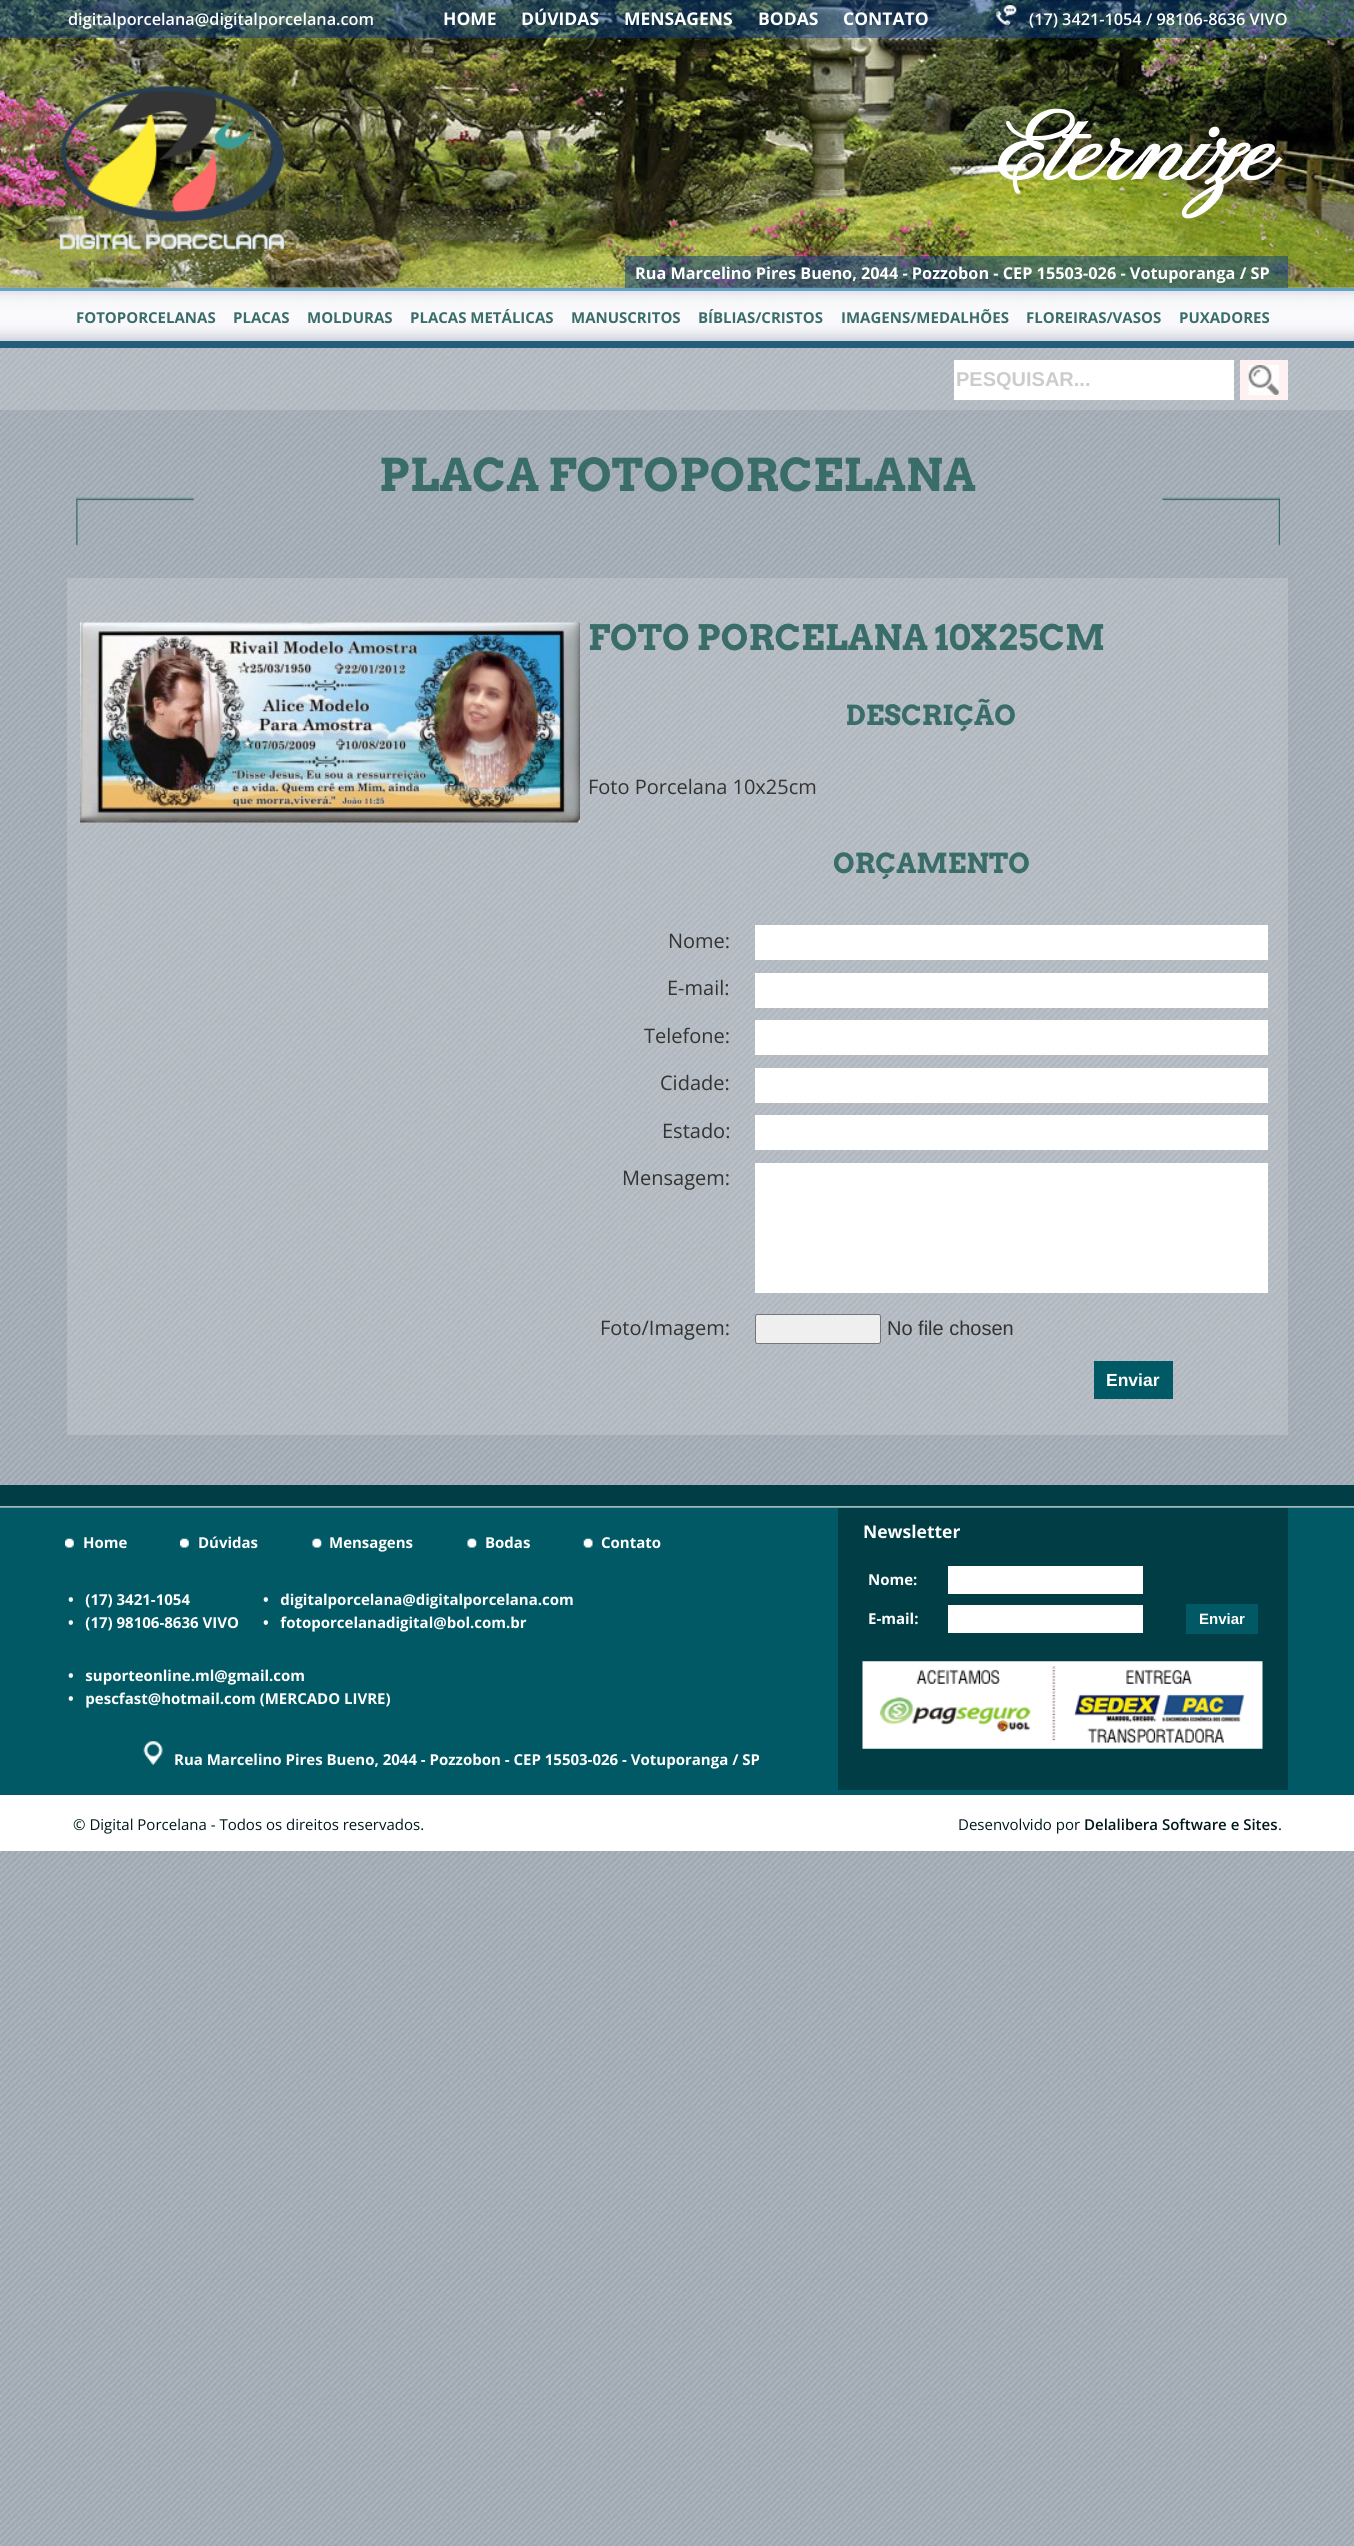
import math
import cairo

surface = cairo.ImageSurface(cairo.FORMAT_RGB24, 1354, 2546)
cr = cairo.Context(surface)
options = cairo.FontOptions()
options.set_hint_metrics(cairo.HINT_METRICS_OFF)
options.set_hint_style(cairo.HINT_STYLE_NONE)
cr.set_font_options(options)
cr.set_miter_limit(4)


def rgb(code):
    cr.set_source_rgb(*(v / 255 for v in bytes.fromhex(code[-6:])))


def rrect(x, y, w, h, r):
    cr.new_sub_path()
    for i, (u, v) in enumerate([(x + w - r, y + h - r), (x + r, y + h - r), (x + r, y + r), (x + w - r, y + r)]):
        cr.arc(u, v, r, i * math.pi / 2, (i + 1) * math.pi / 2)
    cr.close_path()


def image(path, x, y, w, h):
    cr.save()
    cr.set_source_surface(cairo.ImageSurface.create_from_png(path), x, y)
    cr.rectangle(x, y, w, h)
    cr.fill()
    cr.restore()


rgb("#ffffff")
cr.paint()
image("img/1.png", 0, 287, 1354, 2259)
image("img/2.png", 0, 0, 1354, 288)
cr.set_source_rgba(0.031, 0.235, 0.506, 0.5)
cr.rectangle(0, 0, 1354, 38)
cr.fill()
image("img/3.png", 996, 5, 21, 20)
image("img/4.png", 59, 86, 225, 165)
cr.rectangle(625, 256, 663, 32)
cr.fill()
image("img/5.png", 0, 291, 1354, 50)
rgb("#63a2c2")
cr.rectangle(0, 288, 1354, 3)
cr.fill()
cr.set_source_rgba(0.906, 0.906, 0.906, 0.25)
cr.rectangle(0, 348, 1354, 62)
cr.fill()
rgb("#235d7a")
cr.rectangle(0, 341, 1354, 7)
cr.fill()
rgb("#ffffff")
cr.rectangle(954, 360, 280, 40)
cr.fill()
rgb("#fdf1f1")
cr.rectangle(1240, 360, 48, 40)
cr.fill()
image("img/6.png", 1248, 365, 31, 30)
image("img/7.png", 76, 497, 1204, 49)
cr.set_source_rgba(0.906, 0.906, 0.906, 0.25)
cr.rectangle(67, 578, 1221, 857)
cr.fill()
image("img/8.png", 80, 622, 500, 201)
for x, y, w, h, color in [
    (755, 925, 513, 35, "#ffffff"),
    (755, 973, 513, 35, "#ffffff"),
    (755, 1020, 513, 35, "#ffffff"),
    (755, 1068, 513, 35, "#ffffff"),
    (755, 1115, 513, 35, "#ffffff"),
    (755, 1163, 513, 130, "#ffffff"),
]:
    rgb(color)
    cr.rectangle(x, y, w, h)
    cr.fill()
rgb("#efefef")
rrect(755.5, 1314.5, 125, 29, 2)
cr.fill_preserve()
rgb("#767676")
cr.set_line_width(1)
cr.stroke()
rgb("#015965")
cr.rectangle(1094, 1361, 79, 38)
cr.fill()
cr.rectangle(0, 1507, 1354, 288)
cr.fill()
image("img/9.png", 0, 1485, 1354, 23)
image("img/10.png", 65, 1538, 9, 10)
image("img/10.png", 180, 1538, 9, 10)
image("img/11.png", 312, 1538, 10, 10)
image("img/11.png", 467, 1538, 10, 10)
image("img/12.png", 583, 1538, 10, 10)
image("img/13.png", 143, 1741, 20, 24)
for x, y, w, h, color in [
    (838, 1508, 450, 282, "#003d44"),
    (948, 1566, 195, 28, "#ffffff"),
    (948, 1605, 195, 28, "#ffffff"),
    (1186, 1604, 72, 30, "#015965"),
]:
    rgb(color)
    cr.rectangle(x, y, w, h)
    cr.fill()
image("img/14.png", 862, 1661, 401, 88)
rgb("#ffffff")
cr.rectangle(0, 1795, 1354, 56)
cr.fill()
cr.select_font_face("Open Sans SemiBold")
cr.set_font_size(16.25)
cr.move_to(68, 25)
cr.show_text("digitalporcelana@digitalporcelana.com")
cr.select_font_face("Open Sans", cairo.FONT_SLANT_NORMAL, cairo.FONT_WEIGHT_BOLD)
cr.set_font_size(17.5)
for x, y, s in [
    (443, 25, "HOME"),
    (521, 25, "DÚVIDAS"),
    (624, 25, "MENSAGENS"),
    (758, 25, "BODAS"),
    (843, 25, "CONTATO"),
]:
    cr.move_to(x, y)
    cr.show_text(s)
cr.select_font_face("Open Sans SemiBold")
cr.set_font_size(16.25)
cr.move_to(1029, 25)
cr.show_text("(17) 3421-1054 / 98106-8636 VIVO")
cr.select_font_face("Pinyon Script", cairo.FONT_SLANT_NORMAL, cairo.FONT_WEIGHT_BOLD)
cr.set_font_size(100)
cr.move_to(998, 180)
cr.show_text("Eternize")
cr.select_font_face("Open Sans", cairo.FONT_SLANT_NORMAL, cairo.FONT_WEIGHT_BOLD)
cr.set_font_size(16.25)
cr.move_to(635, 279)
cr.show_text("Rua Marcelino Pires Bueno, 2044 - Pozzobon - CEP 15503-026 - Votuporanga / SP")
cr.set_font_size(15)
rgb("#3a6d6a")
for x, y, s in [
    (76, 323, "FOTOPORCELANAS"),
    (233, 323, "PLACAS"),
    (307, 323, "MOLDURAS"),
    (410, 323, "PLACAS METÁLICAS"),
    (571, 323, "MANUSCRITOS"),
    (698, 323, "BÍBLIAS/CRISTOS"),
    (841, 323, "IMAGENS/MEDALHÕES"),
    (1026, 323, "FLOREIRAS/VASOS"),
    (1179, 323, "PUXADORES"),
]:
    cr.move_to(x, y)
    cr.show_text(s)
cr.select_font_face("Liberation Sans", cairo.FONT_SLANT_NORMAL, cairo.FONT_WEIGHT_BOLD)
cr.set_font_size(20)
rgb("#cccccc")
cr.move_to(956, 386)
cr.show_text("PESQUISAR...")
cr.select_font_face("Arvo", cairo.FONT_SLANT_NORMAL, cairo.FONT_WEIGHT_BOLD)
cr.set_font_size(45)
rgb("#3a6d6a")
cr.move_to(379, 491)
cr.show_text("PLACA FOTOPORCELANA")
cr.set_font_size(35)
cr.move_to(588, 650)
cr.show_text("FOTO PORCELANA 10X25CM")
cr.set_font_size(27.5)
cr.move_to(846, 725)
cr.show_text("DESCRIÇÃO")
cr.select_font_face("Open Sans")
cr.set_font_size(20)
rgb("#333333")
cr.move_to(588, 794)
cr.show_text("Foto Porcelana 10x25cm")
cr.select_font_face("Arvo", cairo.FONT_SLANT_NORMAL, cairo.FONT_WEIGHT_BOLD)
cr.set_font_size(27.5)
rgb("#3a6d6a")
cr.move_to(833, 873)
cr.show_text("ORÇAMENTO")
cr.select_font_face("Open Sans")
cr.set_font_size(20)
rgb("#333333")
for x, y, s in [
    (668, 948, "Nome:"),
    (667, 995, "E-mail:"),
    (644, 1043, "Telefone:"),
    (660, 1090, "Cidade:"),
    (662, 1138, "Estado:"),
    (622, 1185, "Mensagem:"),
    (600, 1335, "Foto/Imagem:"),
]:
    cr.move_to(x, y)
    cr.show_text(s)
cr.select_font_face("Liberation Sans")
cr.move_to(887, 1335)
cr.show_text("No file chosen")
cr.select_font_face("Liberation Sans", cairo.FONT_SLANT_NORMAL, cairo.FONT_WEIGHT_BOLD)
cr.set_font_size(17.5)
rgb("#ffffff")
cr.move_to(1106, 1386)
cr.show_text("Enviar")
cr.select_font_face("Open Sans", cairo.FONT_SLANT_NORMAL, cairo.FONT_WEIGHT_BOLD)
cr.set_font_size(15)
for x, y, s in [
    (83, 1548, "Home"),
    (198, 1548, "Dúvidas"),
    (329, 1548, "Mensagens"),
    (485, 1548, "Bodas"),
    (601, 1548, "Contato"),
    (68, 1605, "•   (17) 3421-1054"),
    (68, 1628, "•   (17) 98106-8636 VIVO"),
    (263, 1605, "•   digitalporcelana@digitalporcelana.com"),
    (263, 1628, "•   fotoporcelanadigital@bol.com.br"),
    (68, 1681, "•   suporteonline.ml@gmail.com"),
    (68, 1704, "•   pescfast@hotmail.com (MERCADO LIVRE)"),
    (174, 1765, "Rua Marcelino Pires Bueno, 2044 - Pozzobon - CEP 15503-026 - Votuporanga / SP"),
]:
    cr.move_to(x, y)
    cr.show_text(s)
cr.set_font_size(17.5)
cr.move_to(863, 1538)
cr.show_text("Newsletter")
cr.set_font_size(15)
cr.move_to(868, 1585)
cr.show_text("Nome:")
cr.move_to(868, 1624)
cr.show_text("E-mail:")
cr.select_font_face("Liberation Sans", cairo.FONT_SLANT_NORMAL, cairo.FONT_WEIGHT_BOLD)
cr.move_to(1199, 1624)
cr.show_text("Enviar")
cr.select_font_face("Open Sans")
rgb("#00181c")
cr.move_to(73, 1830)
cr.show_text("© Digital Porcelana - Todos os direitos reservados.")
cr.move_to(958, 1830)
cr.show_text("Desenvolvido por")
cr.select_font_face("Open Sans SemiBold")
cr.move_to(1084, 1830)
cr.show_text("Delalibera Software e Sites")
cr.select_font_face("Open Sans")
cr.move_to(1278, 1830)
cr.show_text(".")
surface.write_to_png("page.png")
